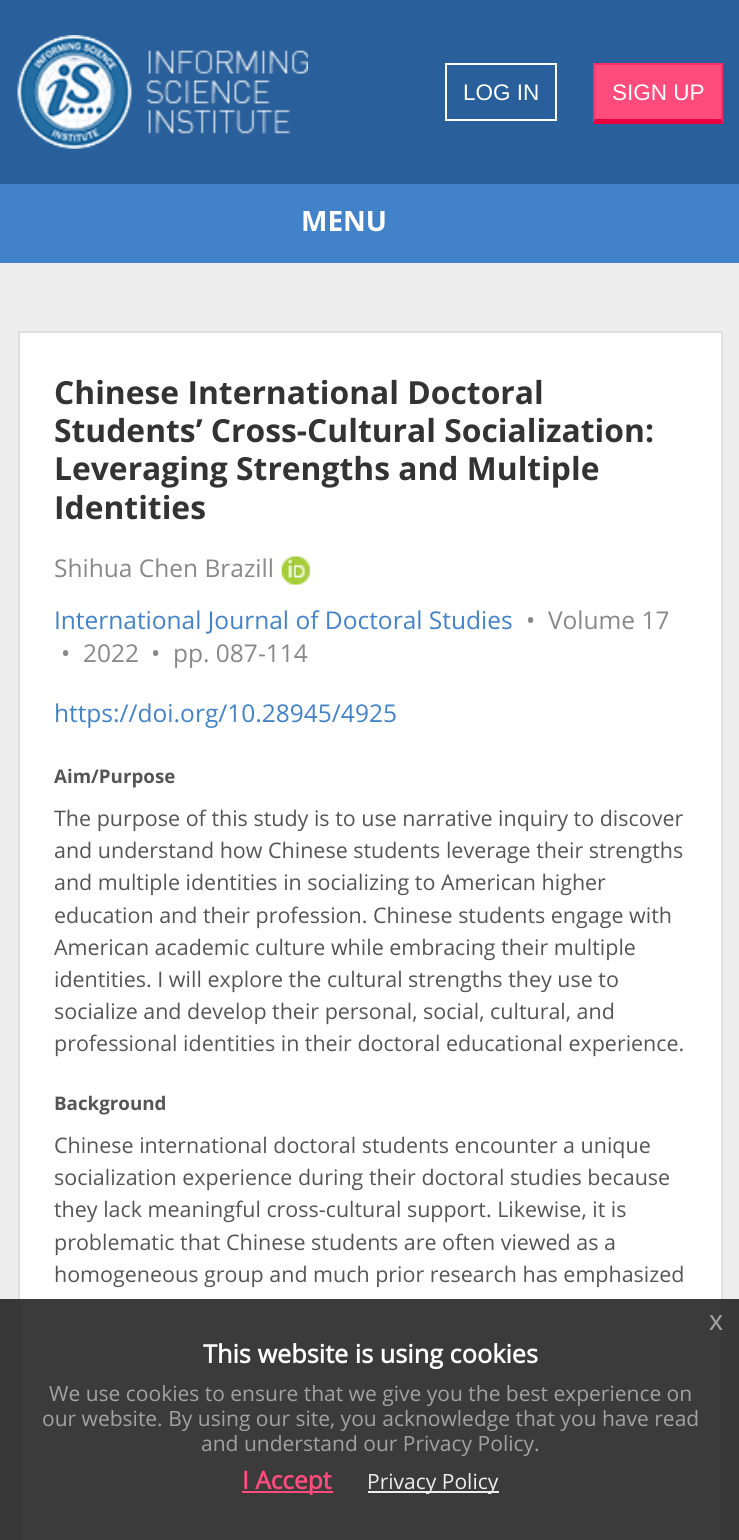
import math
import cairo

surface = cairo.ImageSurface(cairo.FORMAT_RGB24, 739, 1540)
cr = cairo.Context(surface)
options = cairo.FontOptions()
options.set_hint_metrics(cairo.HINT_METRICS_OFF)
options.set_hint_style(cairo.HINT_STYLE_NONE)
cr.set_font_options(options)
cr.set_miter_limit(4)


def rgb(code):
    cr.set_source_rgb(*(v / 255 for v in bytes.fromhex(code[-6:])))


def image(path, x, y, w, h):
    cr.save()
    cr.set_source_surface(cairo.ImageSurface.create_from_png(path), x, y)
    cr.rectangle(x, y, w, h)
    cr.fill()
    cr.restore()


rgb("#ededed")
cr.paint()
rgb("#295f9a")
cr.rectangle(0, 0, 739, 184)
cr.fill()
image("img/1.png", 17, 35, 291, 114)
cr.rectangle(446, 64, 110, 56)
rgb("#ffffff")
cr.stroke()
rgb("#ff4c7d")
cr.rectangle(595, 65, 126, 54)
cr.fill()
rgb("#ff2d67")
cr.rectangle(593, 63, 130, 2)
cr.fill()
cr.new_path()
cr.move_to(723, 63)
cr.line_to(723, 124)
cr.line_to(721, 119)
cr.line_to(721, 65)
cr.close_path()
cr.fill()
rgb("#ea0040")
cr.new_path()
cr.move_to(723, 124)
cr.line_to(593, 124)
cr.line_to(595, 119)
cr.line_to(721, 119)
cr.close_path()
cr.fill()
rgb("#ff2d67")
cr.new_path()
cr.move_to(593, 124)
cr.line_to(593, 63)
cr.line_to(595, 65)
cr.line_to(595, 119)
cr.close_path()
cr.fill()
rgb("#4282c8")
cr.rectangle(0, 184, 739, 79)
cr.fill()
rgb("#ffffff")
cr.rectangle(19, 332, 703, 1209)
cr.fill_preserve()
rgb("#e0e0e0")
cr.stroke()
image("img/2.png", 281, 556, 29, 29)
cr.set_source_rgba(0.098, 0.098, 0.098, 0.85)
cr.rectangle(0, 1299, 739, 241)
cr.fill()
rgb("#ff4c7d")
cr.rectangle(242, 1491, 91, 2)
cr.fill()
rgb("#eeeeee")
cr.rectangle(368, 1491, 131, 2)
cr.fill()
cr.select_font_face("Liberation Sans")
cr.set_font_size(22.5)
rgb("#ffffff")
cr.move_to(463, 100)
cr.show_text("LOG IN")
cr.move_to(612, 100)
cr.show_text("SIGN UP")
cr.select_font_face("Open Sans", cairo.FONT_SLANT_NORMAL, cairo.FONT_WEIGHT_BOLD)
cr.set_font_size(28)
cr.move_to(301, 231)
cr.show_text("MENU")
cr.set_font_size(31.8)
rgb("#333333")
for x, y, s in [
    (54, 404, "Chinese International Doctoral"),
    (54, 442, "Students’ Cross-Cultural Socialization:"),
    (54, 480, "Leveraging Strengths and Multiple"),
    (54, 519, "Identities"),
]:
    cr.move_to(x, y)
    cr.show_text(s)
cr.select_font_face("Open Sans")
cr.set_font_size(24.5)
rgb("#888888")
cr.move_to(54, 577)
cr.show_text("Shihua Chen Brazill")
rgb("#4282c8")
cr.move_to(54, 629)
cr.show_text("International Journal of Doctoral Studies")
rgb("#888888")
for x, y, s in [
    (526, 629, "•  Volume 17"),
    (61, 662, "•  2022"),
    (151, 662, "•  pp. 087-114"),
]:
    cr.move_to(x, y)
    cr.show_text(s)
rgb("#4282c8")
cr.move_to(54, 722)
cr.show_text("https://doi.org/10.28945/4925")
cr.select_font_face("Open Sans", cairo.FONT_SLANT_NORMAL, cairo.FONT_WEIGHT_BOLD)
cr.set_font_size(18.75)
rgb("#555555")
cr.move_to(54, 783)
cr.show_text("Aim/Purpose")
cr.select_font_face("Open Sans")
cr.set_font_size(21.45)
for x, y, s in [
    (54, 826, "The purpose of this study is to use narrative inquiry to discover"),
    (54, 858, "and understand how Chinese students leverage their strengths"),
    (54, 890, "and multiple identities in socializing to American higher"),
    (54, 923, "education and their profession. Chinese students engage with"),
    (54, 955, "American academic culture while embracing their multiple"),
    (54, 987, "identities. I will explore the cultural strengths they use to"),
    (54, 1019, "socialize and develop their personal, social, cultural, and"),
    (54, 1051, "professional identities in their doctoral educational experience."),
]:
    cr.move_to(x, y)
    cr.show_text(s)
cr.select_font_face("Open Sans", cairo.FONT_SLANT_NORMAL, cairo.FONT_WEIGHT_BOLD)
cr.set_font_size(18.75)
cr.move_to(54, 1110)
cr.show_text("Background")
cr.select_font_face("Open Sans")
cr.set_font_size(21.45)
for x, y, s in [
    (54, 1153, "Chinese international doctoral students encounter a unique"),
    (54, 1185, "socialization experience during their doctoral studies because"),
    (54, 1217, "they lack meaningful cross-cultural support. Likewise, it is"),
    (54, 1250, "problematic that Chinese students are often viewed as a"),
    (54, 1282, "homogeneous group and much prior research has emphasized"),
]:
    cr.move_to(x, y)
    cr.show_text(s)
cr.select_font_face("Liberation Sans")
cr.set_font_size(28)
rgb("#a2a2a2")
cr.move_to(709, 1330)
cr.show_text("x")
cr.select_font_face("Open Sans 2", cairo.FONT_SLANT_NORMAL, cairo.FONT_WEIGHT_BOLD)
cr.set_font_size(25.25)
rgb("#ffffff")
cr.move_to(203, 1363)
cr.show_text("This website is using cookies")
cr.select_font_face("Open Sans")
cr.set_font_size(21)
rgb("#a2a2a2")
for x, y, s in [
    (49, 1401, "We use cookies to ensure that we give you the best experience on"),
    (42, 1426, "our website. By using our site, you acknowledge that you have read"),
    (201, 1451, "and understand our Privacy Policy."),
]:
    cr.move_to(x, y)
    cr.show_text(s)
cr.select_font_face("Open Sans 2", cairo.FONT_SLANT_NORMAL, cairo.FONT_WEIGHT_BOLD)
cr.set_font_size(24.5)
rgb("#ff4c7d")
cr.move_to(242, 1489)
cr.show_text("I Accept")
cr.select_font_face("Open Sans")
cr.set_font_size(21)
rgb("#eeeeee")
cr.move_to(367, 1489)
cr.show_text("Privacy Policy")
surface.write_to_png("page.png")
